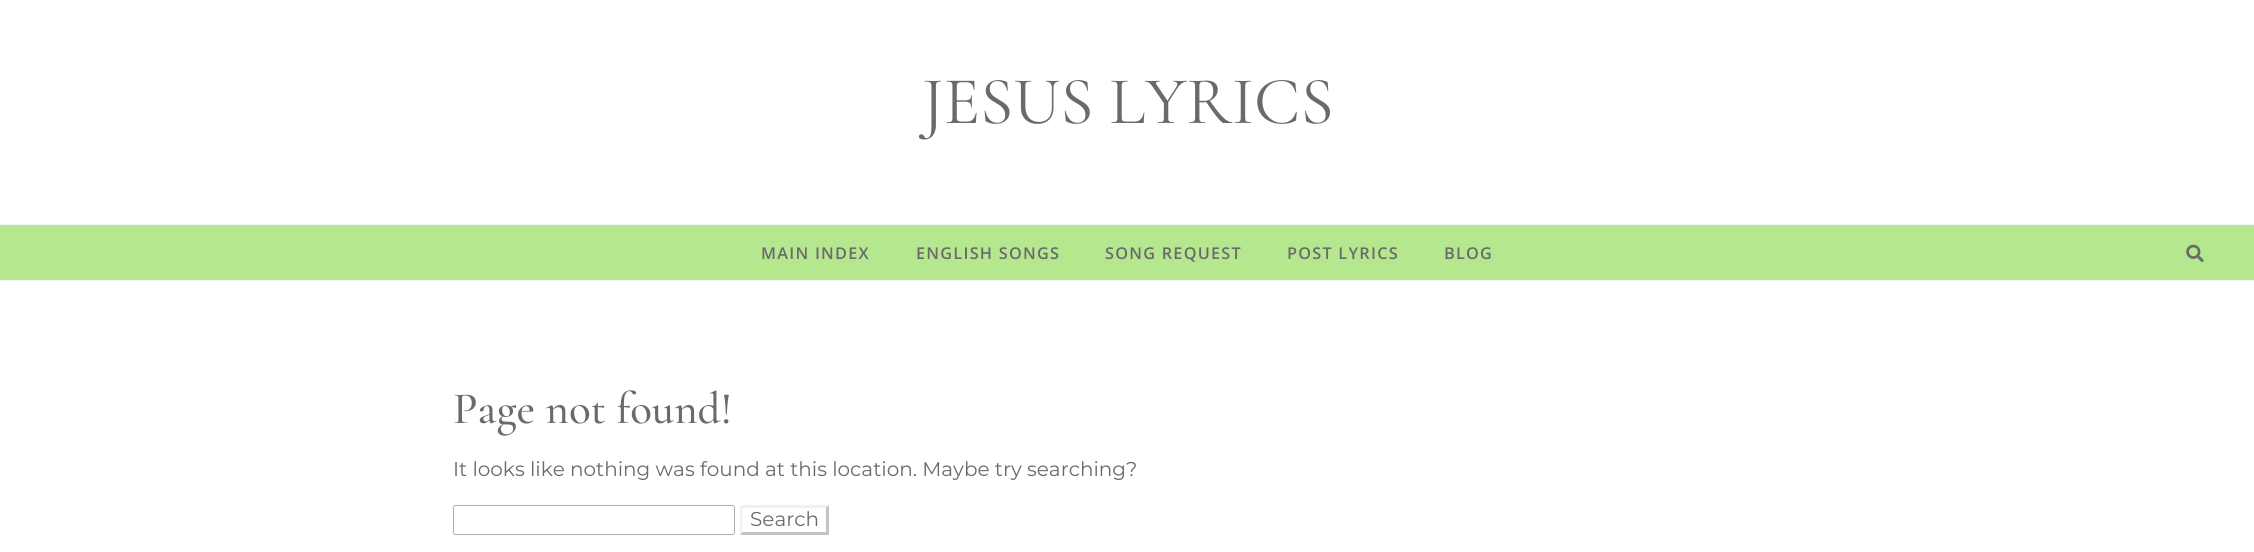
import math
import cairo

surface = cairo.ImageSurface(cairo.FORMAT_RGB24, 2254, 552)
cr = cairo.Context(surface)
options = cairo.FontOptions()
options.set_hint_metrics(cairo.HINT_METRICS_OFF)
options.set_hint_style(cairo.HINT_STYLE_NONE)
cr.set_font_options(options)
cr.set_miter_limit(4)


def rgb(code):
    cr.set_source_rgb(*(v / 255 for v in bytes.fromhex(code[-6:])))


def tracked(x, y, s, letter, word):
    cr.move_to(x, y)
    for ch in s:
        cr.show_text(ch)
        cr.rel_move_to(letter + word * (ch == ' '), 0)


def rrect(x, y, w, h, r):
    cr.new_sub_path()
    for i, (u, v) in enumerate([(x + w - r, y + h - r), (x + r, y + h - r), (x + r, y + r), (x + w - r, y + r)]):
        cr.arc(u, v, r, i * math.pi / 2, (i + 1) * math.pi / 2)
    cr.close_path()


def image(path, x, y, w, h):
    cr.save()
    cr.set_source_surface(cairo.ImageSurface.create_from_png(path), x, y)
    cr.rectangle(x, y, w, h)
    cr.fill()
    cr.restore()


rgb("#ffffff")
cr.paint()
for x, y, w, h, color in [
    (0, 224, 2254, 1, "#f5f5f5"),
    (0, 225, 2254, 55, "#b5e78f"),
    (0, 280, 2254, 1, "#f5f5f5"),
]:
    rgb(color)
    cr.rectangle(x, y, w, h)
    cr.fill()
image("img/1.png", 2186, 244, 18, 19)
rrect(453.5, 505.5, 281, 29, 2)
rgb("#aeaeae")
cr.set_line_width(1)
cr.stroke()
rgb("#f1f1f1")
cr.new_path()
cr.move_to(740, 505)
cr.line_to(829, 505)
cr.line_to(826, 508)
cr.line_to(742, 508)
cr.close_path()
cr.fill()
rgb("#c4c4c4")
cr.new_path()
cr.move_to(829, 505)
cr.line_to(829, 535)
cr.line_to(826, 532.5)
cr.line_to(826, 507.5)
cr.close_path()
cr.fill()
cr.new_path()
cr.move_to(829, 535)
cr.line_to(740, 535)
cr.line_to(742, 532)
cr.line_to(826, 532)
cr.close_path()
cr.fill()
rgb("#f1f1f1")
cr.new_path()
cr.move_to(740, 535)
cr.line_to(740, 505)
cr.line_to(742.5, 507.5)
cr.line_to(742.5, 532.5)
cr.close_path()
cr.fill()
cr.select_font_face("Cormorant Garamond")
cr.set_font_size(67.5)
rgb("#6a6a6a")
cr.move_to(922, 123)
cr.show_text("JESUS LYRICS")
cr.select_font_face("Open Sans SemiBold")
cr.set_font_size(16.25)
for x, y, s in [
    (761, 259, "MAIN INDEX"),
    (916, 259, "ENGLISH SONGS"),
    (1105, 259, "SONG REQUEST"),
    (1287, 259, "POST LYRICS"),
    (1444, 259, "BLOG"),
]:
    tracked(x, y, s, 1.25, 0)
cr.select_font_face("Cormorant Garamond Medium")
cr.set_font_size(45)
cr.move_to(453, 423)
cr.show_text("Page not found!")
cr.select_font_face("Montserrat Thin")
cr.set_font_size(20)
cr.move_to(453, 476)
cr.show_text("It looks like nothing was found at this location. Maybe try searching?")
cr.move_to(750, 526)
cr.show_text("Search")
surface.write_to_png("page.png")
